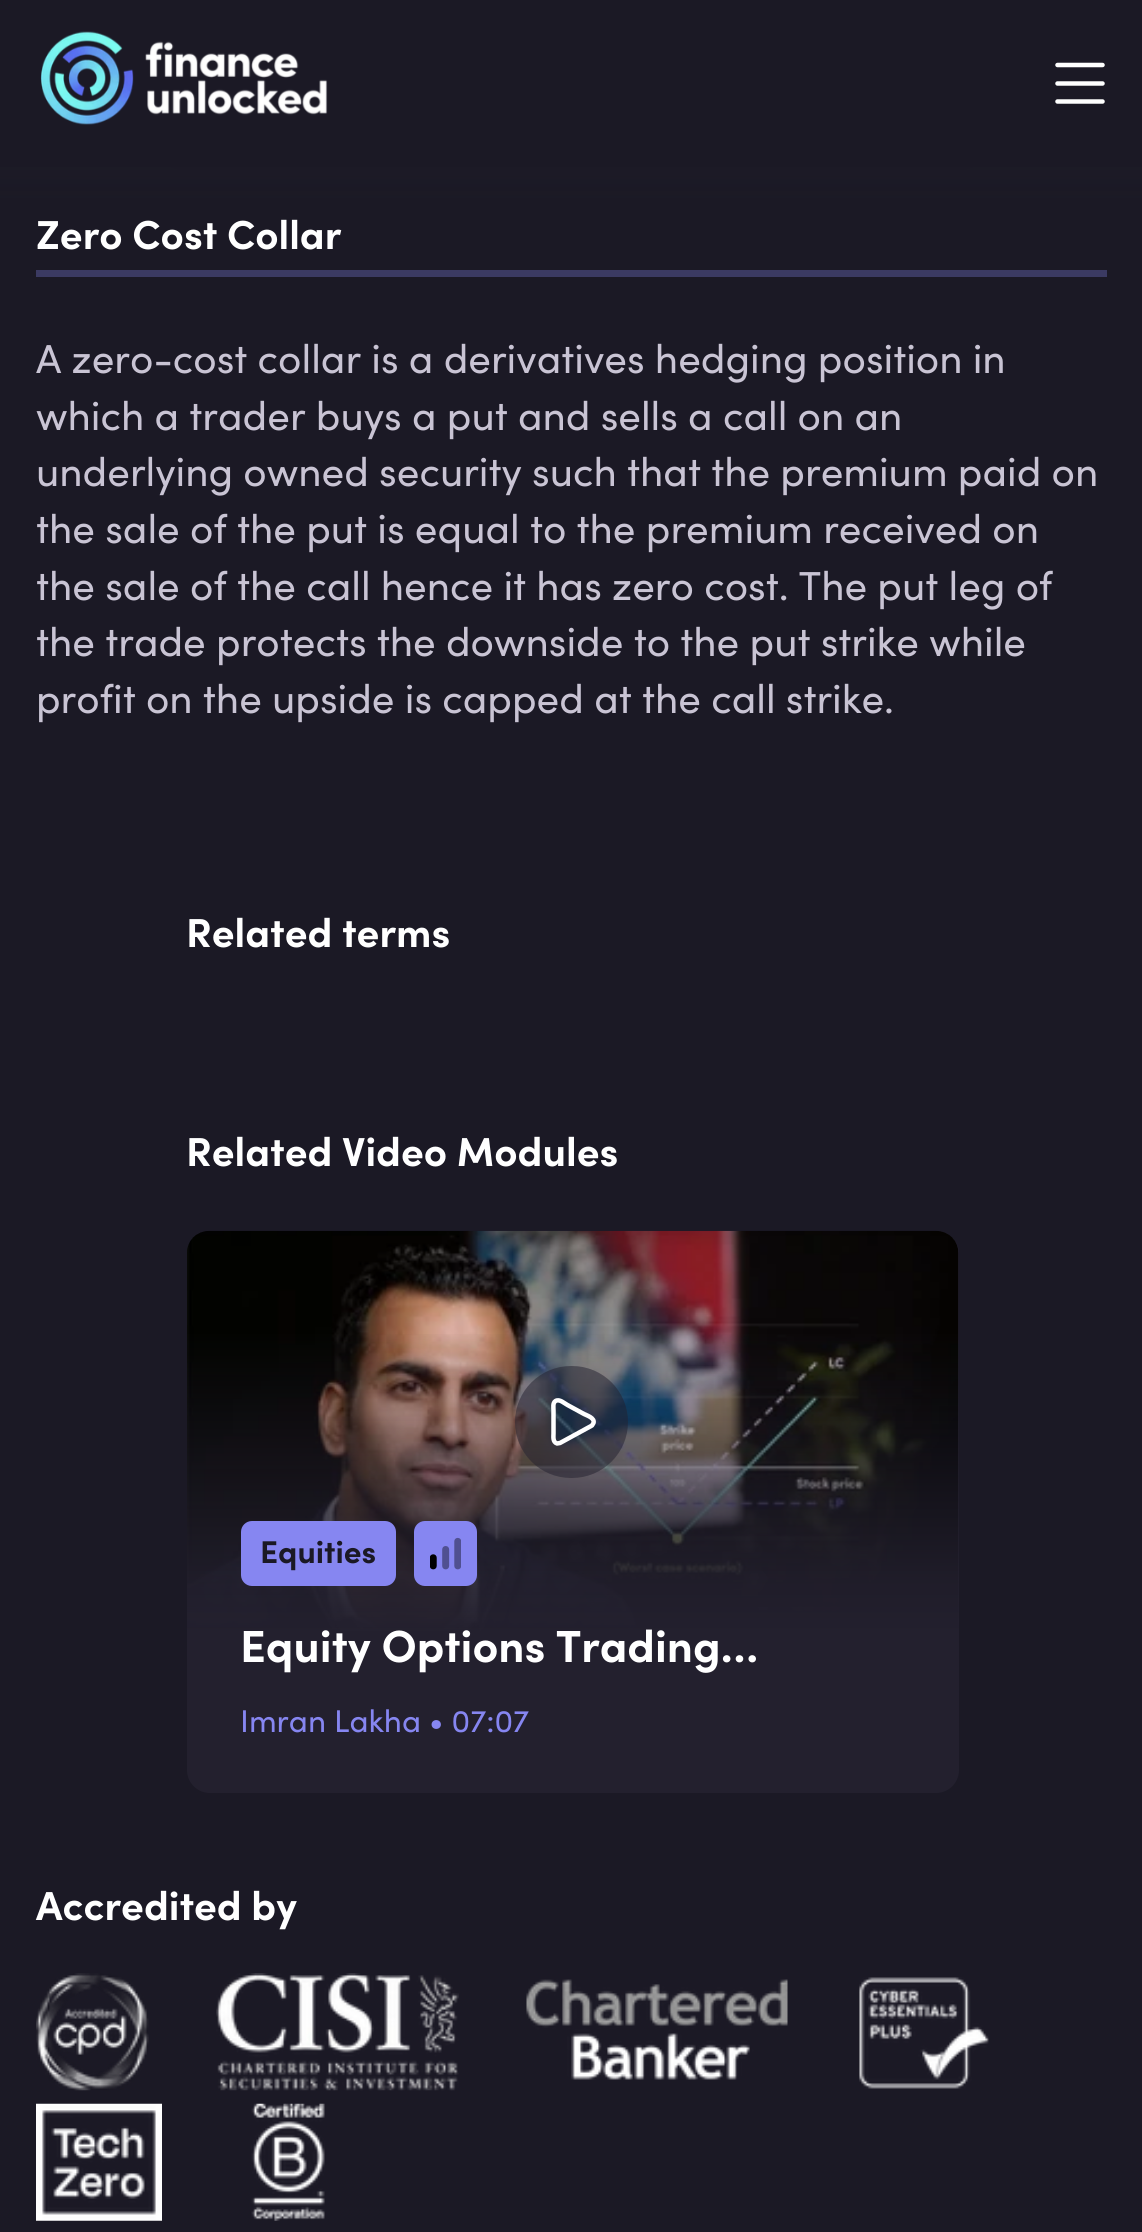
import math
import cairo

surface = cairo.ImageSurface(cairo.FORMAT_RGB24, 1142, 2232)
cr = cairo.Context(surface)
options = cairo.FontOptions()
options.set_hint_metrics(cairo.HINT_METRICS_OFF)
options.set_hint_style(cairo.HINT_STYLE_NONE)
cr.set_font_options(options)
cr.set_miter_limit(4)


def rgb(code):
    cr.set_source_rgb(*(v / 255 for v in bytes.fromhex(code[-6:])))


def rrect(x, y, w, h, r):
    cr.new_sub_path()
    for i, (u, v) in enumerate([(x + w - r, y + h - r), (x + r, y + h - r), (x + r, y + r), (x + w - r, y + r)]):
        cr.arc(u, v, r, i * math.pi / 2, (i + 1) * math.pi / 2)
    cr.close_path()


def image(path, x, y, w, h):
    cr.save()
    cr.set_source_surface(cairo.ImageSurface.create_from_png(path), x, y)
    cr.rectangle(x, y, w, h)
    cr.fill()
    cr.restore()


rgb("#1b1925")
cr.paint()
image("img/1.png", 40, 31, 288, 94)
cr.new_path()
cr.move_to(1057.5, 65)
cr.line_to(1102.5, 65)
cr.move_to(1057.5, 83.5)
cr.line_to(1102.5, 83.5)
cr.move_to(1057.5, 101.5)
cr.line_to(1102.5, 101.5)
rgb("#ffffff")
cr.set_line_width(4.5)
cr.set_line_cap(cairo.LINE_CAP_ROUND)
cr.set_line_join(cairo.LINE_JOIN_ROUND)
cr.stroke()
gradient = cairo.RadialGradient(0, 0, 0, 0, 0, 1)
gradient.set_matrix(cairo.Matrix(1 / 937, 0, 0, 1 / 454, -1 * 572 / 937, -1 * -150 / 454))
gradient.add_color_stop_rgba(0, 0.157, 0.149, 0.239, 1)
gradient.add_color_stop_rgba(1, 0.153, 0.204, 0.239, 1)
cr.set_source(gradient)
cr.rectangle(0, 167, 1142, 34)
cr.fill()
gradient = cairo.LinearGradient(572, 205, 572, -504)
gradient.add_color_stop_rgba(0, 0.106, 0.098, 0.145, 1)
gradient.add_color_stop_rgba(1, 0.106, 0.098, 0.145, 0)
cr.set_source(gradient)
cr.rectangle(0, 167, 1142, 34)
cr.fill()
rgb("#3b3a62")
cr.rectangle(36, 270, 1071, 7)
cr.fill()
rgb("#23202e")
rrect(187, 1231, 772, 562, 23)
cr.fill()
image("img/2.png", 187, 1230, 772, 401)
gradient = cairo.LinearGradient(573, 1634, 573, 1328)
gradient.add_color_stop_rgba(0, 0.137, 0.125, 0.18, 1)
gradient.add_color_stop_rgba(0.17, 0.137, 0.125, 0.18, 0.9)
gradient.add_color_stop_rgba(1, 0.137, 0.125, 0.18, 0)
cr.set_source(gradient)
cr.rectangle(187, 1334, 772, 297)
cr.fill()
cr.set_source_rgba(0.137, 0.125, 0.18, 0.5)
rrect(515, 1366, 113, 112, 56)
cr.fill()
cr.new_path()
cr.move_to(560, 1443)
cr.line_to(557, 1443.5)
cr.curve_to(552.5, 1442, 553.5, 1436.5, 553.5, 1433.5)
cr.line_to(553.5, 1410.5)
cr.curve_to(553.5, 1407.5, 552.5, 1403, 555.5, 1401)
cr.curve_to(559.5, 1398.5, 564.5, 1403.5, 567.5, 1405)
cr.line_to(584, 1414)
cr.curve_to(587, 1415.5, 595, 1418, 593.5, 1423)
cr.line_to(592, 1425.5)
cr.close_path()
rgb("#ffffff")
cr.stroke()
rgb("#8686f1")
rrect(241, 1521, 155, 65, 11)
cr.fill()
rrect(414, 1521, 63, 65, 11)
cr.fill()
image("img/3.png", 430, 1537, 31, 33)
image("img/4.png", 36, 1973, 113, 118)
image("img/5.png", 216, 1973, 243, 118)
image("img/6.png", 526, 1979, 262, 101)
image("img/7.png", 859, 1977, 130, 112)
image("img/8.png", 36, 2103, 126, 118)
image("img/9.png", 251, 2103, 74, 118)
cr.select_font_face("Sofia", cairo.FONT_SLANT_NORMAL, cairo.FONT_WEIGHT_BOLD)
cr.set_font_size(40.5)
rgb("#ffffff")
cr.move_to(36, 249)
cr.show_text("Zero Cost Collar")
cr.select_font_face("Sofia")
rgb("#c9c4d4")
for x, y, s in [
    (36, 373, "A zero-cost collar is a derivatives hedging position in"),
    (36, 430, "which a trader buys a put and sells a call on an"),
    (36, 486, "underlying owned security such that the premium paid on"),
    (36, 543, "the sale of the put is equal to the premium received on"),
    (36, 600, "the sale of the call hence it has zero cost. The put leg of"),
    (36, 656, "the trade protects the downside to the put strike while"),
    (36, 713, "profit on the upside is capped at the call strike."),
]:
    cr.move_to(x, y)
    cr.show_text(s)
cr.select_font_face("Sofia", cairo.FONT_SLANT_NORMAL, cairo.FONT_WEIGHT_BOLD)
rgb("#ffffff")
cr.move_to(186, 947)
cr.show_text("Related terms")
cr.move_to(186, 1166)
cr.show_text("Related Video Modules")
cr.set_font_size(31.5)
rgb("#1b1925")
cr.move_to(260, 1563)
cr.show_text("Equities")
cr.set_font_size(45)
rgb("#ffffff")
cr.move_to(240, 1662)
cr.show_text("Equity Options Trading…")
cr.select_font_face("Sofia")
cr.set_font_size(31.5)
rgb("#8686f1")
cr.move_to(240, 1732)
cr.show_text("Imran Lakha • 07:07")
cr.select_font_face("Sofia", cairo.FONT_SLANT_NORMAL, cairo.FONT_WEIGHT_BOLD)
cr.set_font_size(40.5)
rgb("#ffffff")
cr.move_to(36, 1920)
cr.show_text("Accredited by")
surface.write_to_png("page.png")
